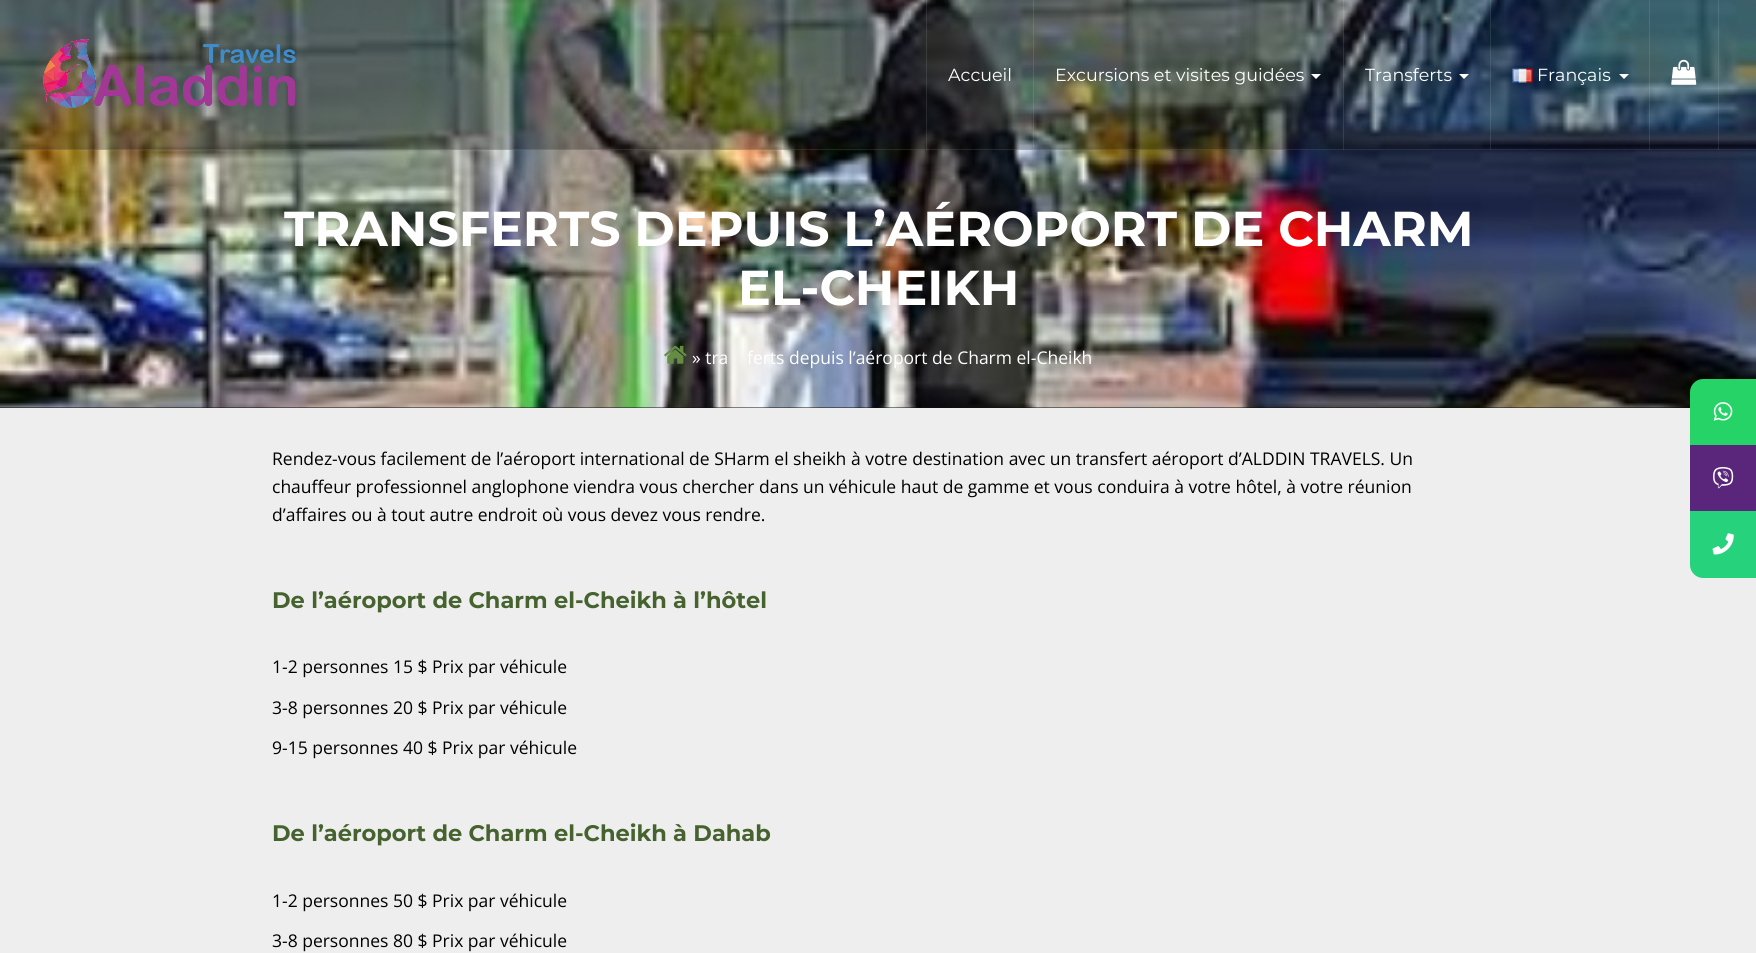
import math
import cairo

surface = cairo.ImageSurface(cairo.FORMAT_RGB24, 1756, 953)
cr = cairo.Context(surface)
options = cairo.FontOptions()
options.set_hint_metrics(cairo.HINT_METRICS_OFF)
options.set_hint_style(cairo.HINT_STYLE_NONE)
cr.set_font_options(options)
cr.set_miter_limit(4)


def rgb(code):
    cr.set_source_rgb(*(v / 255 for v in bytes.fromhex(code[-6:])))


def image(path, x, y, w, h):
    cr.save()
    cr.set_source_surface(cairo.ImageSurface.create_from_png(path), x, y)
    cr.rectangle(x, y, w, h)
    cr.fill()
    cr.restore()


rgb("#eeeeee")
cr.paint()
rgb("#111111")
cr.rectangle(0, 407, 1690, 1)
cr.fill()
image("img/4.png", 0, 0, 1756, 408)
cr.set_source_rgba(0.067, 0.067, 0.067, 0.31)
cr.rectangle(0, 0, 1756, 150)
cr.fill()
cr.set_source_rgba(1, 1, 1, 0.1)
cr.rectangle(0, 149, 1756, 1)
cr.fill()
image("img/1.png", 43, 39, 253, 69)
cr.rectangle(1033, 0, 1, 150)
cr.fill()
cr.rectangle(926, 0, 1, 150)
cr.fill()
cr.rectangle(1343, 0, 1, 150)
cr.fill()
rgb("#ffffff")
cr.new_path()
cr.move_to(1311, 74)
cr.line_to(1321, 74)
cr.line_to(1316, 79)
cr.close_path()
cr.fill()
cr.set_source_rgba(1, 1, 1, 0.1)
cr.rectangle(1490, 0, 1, 150)
cr.fill()
rgb("#ffffff")
cr.new_path()
cr.move_to(1459, 74)
cr.line_to(1469, 74)
cr.line_to(1464, 79)
cr.close_path()
cr.fill()
cr.set_source_rgba(1, 1, 1, 0.1)
cr.rectangle(1649, 0, 1, 150)
cr.fill()
image("img/2.png", 1512, 68, 21, 15)
rgb("#ffffff")
cr.new_path()
cr.move_to(1619, 74)
cr.line_to(1629, 74)
cr.line_to(1624, 79)
cr.close_path()
cr.fill()
cr.set_source_rgba(1, 1, 1, 0.1)
cr.rectangle(1718, 0, 1, 150)
cr.fill()
image("img/3.png", 1671, 59, 26, 26)
image("img/5.png", 664, 345, 23, 19)
rgb("#26d367")
cr.new_path()
cr.move_to(1703, 379)
cr.line_to(1756, 379)
cr.line_to(1756, 445)
cr.line_to(1690, 445)
cr.line_to(1690, 392)
cr.curve_to(1690, 385, 1696, 379, 1703, 379)
cr.close_path()
cr.fill()
image("img/6.png", 1713, 402, 20, 19)
rgb("#59267c")
cr.rectangle(1690, 445, 66, 66)
cr.fill()
image("img/7.png", 1713, 467, 21, 22)
rgb("#26d37c")
cr.new_path()
cr.move_to(1690, 511)
cr.line_to(1756, 511)
cr.line_to(1756, 578)
cr.line_to(1703, 578)
cr.curve_to(1696, 578, 1690, 572, 1690, 565)
cr.close_path()
cr.fill()
image("img/8.png", 1712, 533, 22, 22)
cr.select_font_face("Montserrat")
cr.set_font_size(17.5)
rgb("#ffffff")
for x, y, s in [
    (948, 81, "Accueil"),
    (1055, 81, "Excursions et visites guidées"),
    (1365, 81, "Transferts"),
    (1537, 81, "Français"),
]:
    cr.move_to(x, y)
    cr.show_text(s)
cr.select_font_face("Montserrat", cairo.FONT_SLANT_NORMAL, cairo.FONT_WEIGHT_BOLD)
cr.set_font_size(49)
cr.move_to(284, 246)
cr.show_text("TRANSFERTS DEPUIS L’AÉROPORT DE CHARM")
cr.move_to(738, 305)
cr.show_text("EL-CHEIKH")
cr.select_font_face("Open Sans")
cr.set_font_size(17.5)
cr.move_to(692, 364)
cr.show_text("» tra")
cr.move_to(747, 364)
cr.show_text("ferts depuis l’aéroport de Charm el-Cheikh")
rgb("#000000")
for x, y, s in [
    (272, 465, "Rendez-vous facilement de l’aéroport international de SHarm el sheikh à votre destination avec un transfert aéroport d’ALDDIN TRAVELS. Un"),
    (272, 493, "chauffeur professionnel anglophone viendra vous chercher dans un véhicule haut de gamme et vous conduira à votre hôtel, à votre réunion"),
    (272, 521, "d’affaires ou à tout autre endroit où vous devez vous rendre."),
]:
    cr.move_to(x, y)
    cr.show_text(s)
cr.select_font_face("Montserrat", cairo.FONT_SLANT_NORMAL, cairo.FONT_WEIGHT_BOLD)
cr.set_font_size(22.5)
rgb("#46632f")
cr.move_to(272, 608)
cr.show_text("De l’aéroport de Charm el-Cheikh à l’hôtel")
cr.select_font_face("Open Sans")
cr.set_font_size(17.5)
rgb("#000000")
for x, y, s in [
    (272, 673, "1-2 personnes 15 $ Prix par véhicule"),
    (272, 714, "3-8 personnes 20 $ Prix par véhicule"),
    (272, 754, "9-15 personnes 40 $ Prix par véhicule"),
]:
    cr.move_to(x, y)
    cr.show_text(s)
cr.select_font_face("Montserrat", cairo.FONT_SLANT_NORMAL, cairo.FONT_WEIGHT_BOLD)
cr.set_font_size(22.5)
rgb("#46632f")
cr.move_to(272, 841)
cr.show_text("De l’aéroport de Charm el-Cheikh à Dahab")
cr.select_font_face("Open Sans")
cr.set_font_size(17.5)
rgb("#000000")
cr.move_to(272, 907)
cr.show_text("1-2 personnes 50 $ Prix par véhicule")
cr.move_to(272, 947)
cr.show_text("3-8 personnes 80 $ Prix par véhicule")
surface.write_to_png("page.png")
